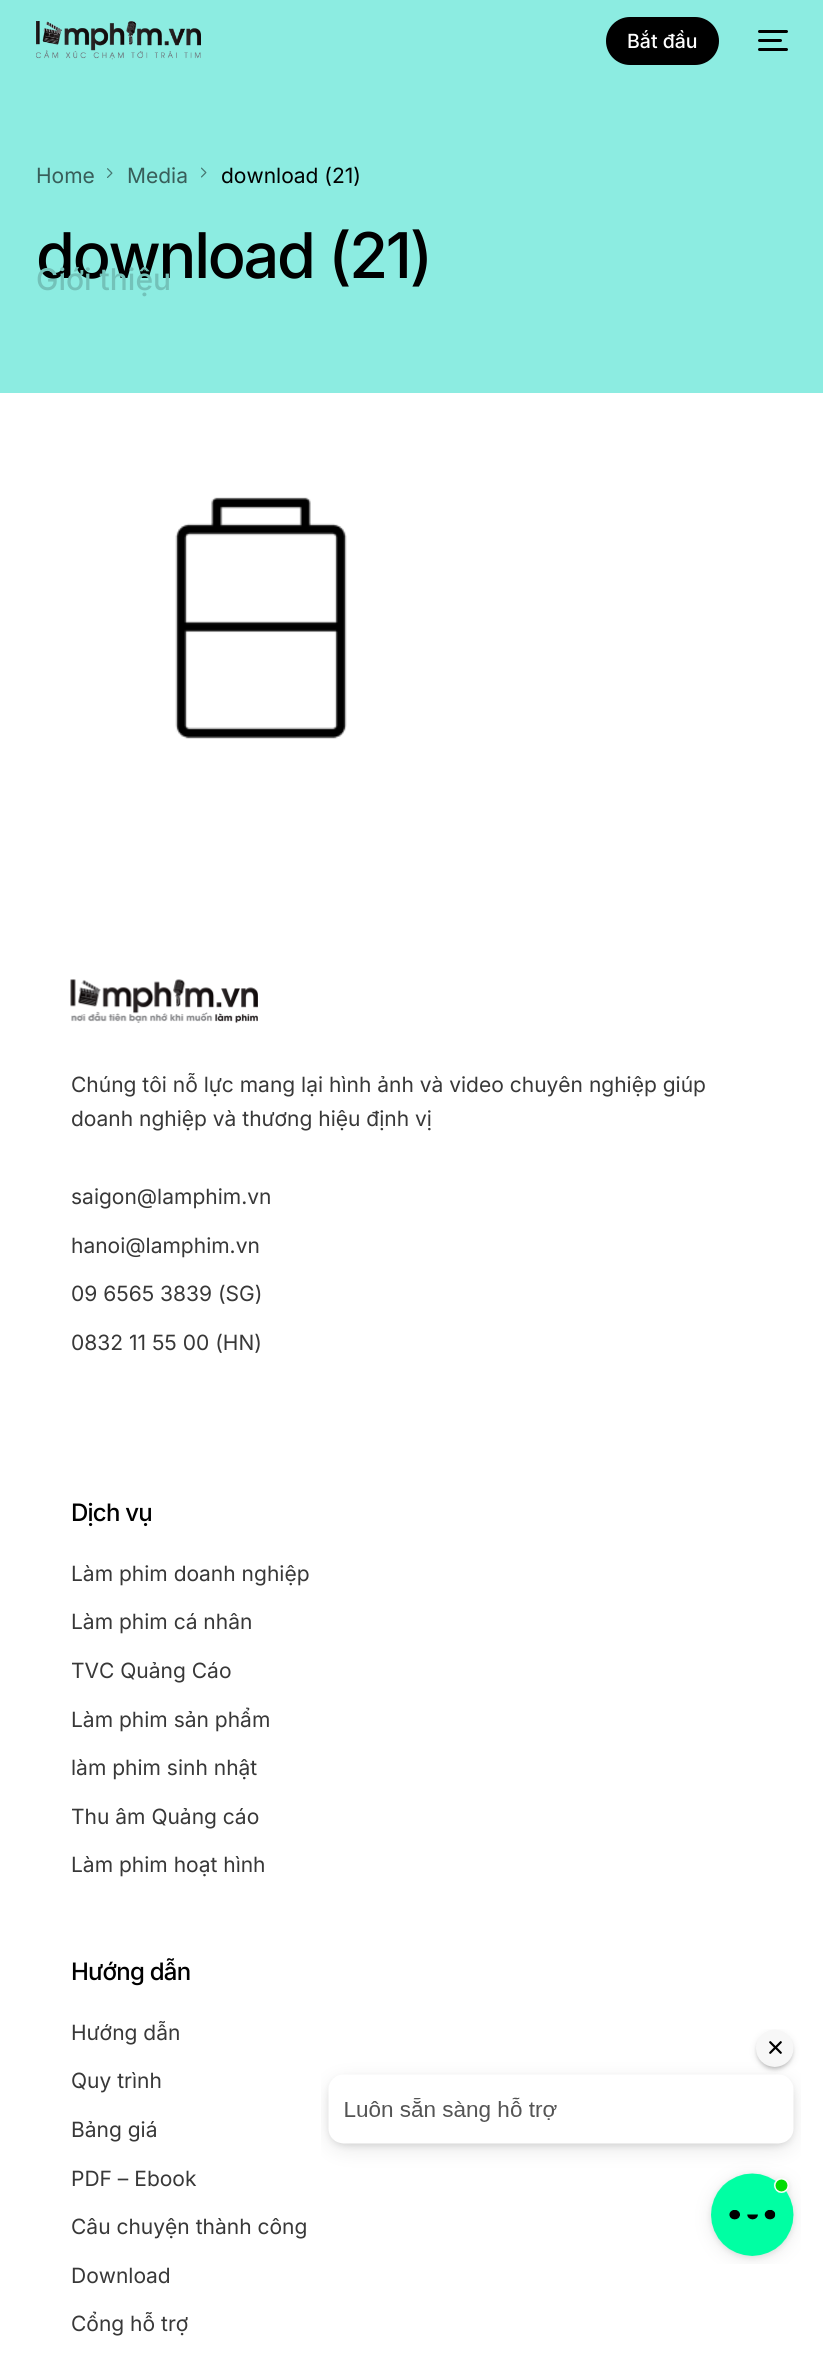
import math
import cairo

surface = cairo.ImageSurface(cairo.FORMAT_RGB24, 823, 2353)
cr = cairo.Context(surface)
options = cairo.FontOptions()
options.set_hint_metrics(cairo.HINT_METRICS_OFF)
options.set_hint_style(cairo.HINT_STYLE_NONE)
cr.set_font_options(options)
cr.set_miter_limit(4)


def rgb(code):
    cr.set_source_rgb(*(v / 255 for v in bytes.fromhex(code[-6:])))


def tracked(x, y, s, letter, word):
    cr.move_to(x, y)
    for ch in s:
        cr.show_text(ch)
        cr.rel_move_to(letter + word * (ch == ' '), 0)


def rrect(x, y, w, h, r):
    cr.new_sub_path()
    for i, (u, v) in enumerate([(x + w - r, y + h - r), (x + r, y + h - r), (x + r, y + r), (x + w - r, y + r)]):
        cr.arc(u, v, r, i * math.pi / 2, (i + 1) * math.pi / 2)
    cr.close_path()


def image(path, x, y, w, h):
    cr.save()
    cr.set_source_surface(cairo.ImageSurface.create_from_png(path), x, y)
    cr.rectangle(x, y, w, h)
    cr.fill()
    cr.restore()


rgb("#ffffff")
cr.paint()
rgb("#8cece1")
cr.rectangle(0, 0, 823, 393)
cr.fill()
image("img/1.png", 36, 21, 165, 39)
rgb("#000000")
rrect(606, 17, 113, 48, 24)
cr.fill()
rrect(758, 30, 30, 3, 1.5)
cr.fill()
rrect(758, 39, 24, 3, 1.5)
cr.fill()
rrect(758, 48, 30, 3, 1.5)
cr.fill()
image("img/2.png", 107, 168, 6, 10)
image("img/3.png", 201, 167, 6, 11)
image("img/4.png", 175, 497, 172, 242)
image("img/5.png", 70, 979, 188, 44)
image("img/6.png", 321, 2029, 480, 235)
cr.select_font_face("Inter Medium")
cr.set_font_size(19.5)
rgb("#ffffff")
cr.move_to(627, 48)
cr.show_text("Bắt đầu")
cr.select_font_face("Inter")
cr.set_font_size(21)
rgb("#385e5a")
cr.move_to(36, 183)
cr.show_text("Home")
cr.move_to(127, 183)
cr.show_text("Media")
rgb("#000000")
cr.move_to(221, 183)
cr.show_text("download (21)")
cr.select_font_face("Inter Medium")
cr.set_font_size(63)
tracked(36, 278, "download (21)", -2.25, 0)
cr.select_font_face("Inter")
cr.set_font_size(21)
rgb("#383838")
for x, y, s in [
    (71, 1092, "Chúng tôi nỗ lực mang lại hình ảnh và video chuyên nghiệp giúp"),
    (71, 1126, "doanh nghiệp và thương hiệu định vị"),
    (71, 1204, "saigon@lamphim.vn"),
    (71, 1253, "hanoi@lamphim.vn"),
    (71, 1301, "09 6565 3839 (SG)"),
    (71, 1350, "0832 11 55 00 (HN)"),
]:
    cr.move_to(x, y)
    cr.show_text(s)
cr.select_font_face("Inter Medium")
cr.set_font_size(24)
rgb("#000000")
tracked(71, 1521, "Dịch vụ", -0.75, 0)
cr.select_font_face("Inter")
cr.set_font_size(21)
rgb("#383838")
for x, y, s in [
    (71, 1581, "Làm phim doanh nghiệp"),
    (71, 1629, "Làm phim cá nhân"),
    (71, 1678, "TVC Quảng Cáo"),
    (71, 1727, "Làm phim sản phẩm"),
    (71, 1775, "làm phim sinh nhật"),
    (71, 1824, "Thu âm Quảng cáo"),
    (71, 1872, "Làm phim hoạt hình"),
]:
    cr.move_to(x, y)
    cr.show_text(s)
cr.select_font_face("Inter Medium")
cr.set_font_size(24)
rgb("#000000")
tracked(71, 1980, "Hướng dẫn", -0.75, 0)
cr.select_font_face("Inter")
cr.set_font_size(21)
rgb("#383838")
for x, y, s in [
    (71, 2040, "Hướng dẫn"),
    (71, 2088, "Quy trình"),
    (71, 2137, "Bảng giá"),
    (71, 2186, "PDF – Ebook"),
    (71, 2234, "Câu chuyện thành công"),
    (71, 2283, "Download"),
    (71, 2331, "Cổng hỗ trợ"),
]:
    cr.move_to(x, y)
    cr.show_text(s)
cr.select_font_face("Inter Medium")
cr.set_font_size(30)
rgb("#73c2b9")
cr.move_to(36, 290)
cr.show_text("Giới thiệu")
surface.write_to_png("page.png")
